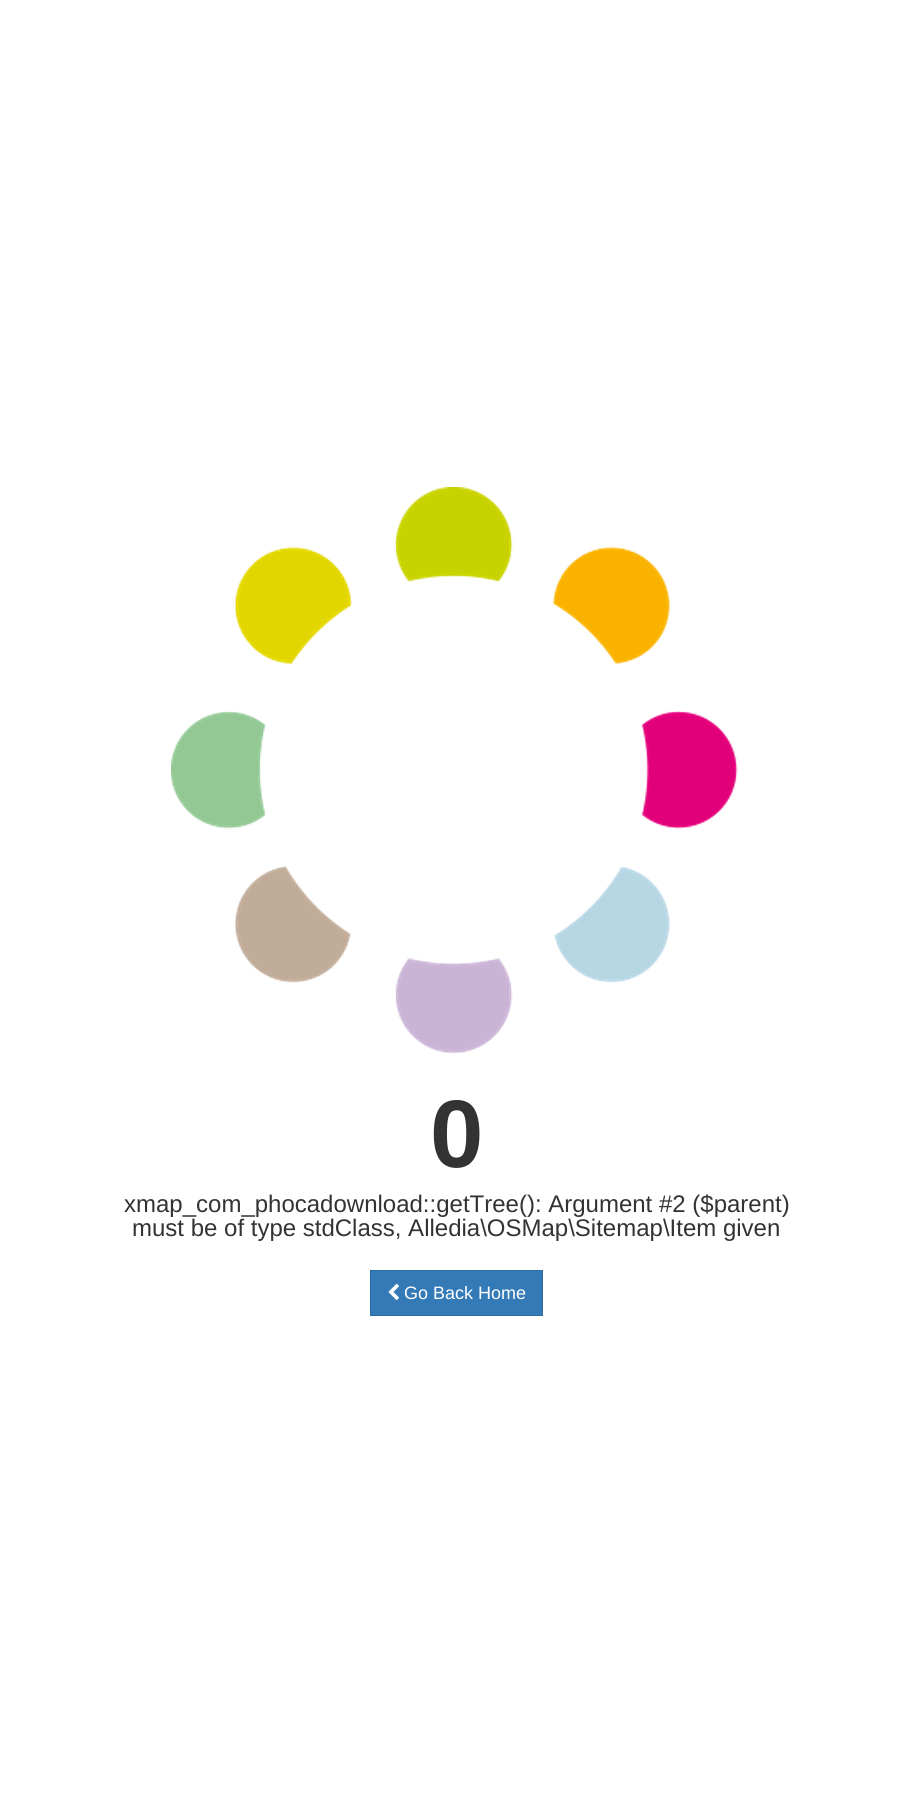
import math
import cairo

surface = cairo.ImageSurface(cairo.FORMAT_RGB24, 913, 1798)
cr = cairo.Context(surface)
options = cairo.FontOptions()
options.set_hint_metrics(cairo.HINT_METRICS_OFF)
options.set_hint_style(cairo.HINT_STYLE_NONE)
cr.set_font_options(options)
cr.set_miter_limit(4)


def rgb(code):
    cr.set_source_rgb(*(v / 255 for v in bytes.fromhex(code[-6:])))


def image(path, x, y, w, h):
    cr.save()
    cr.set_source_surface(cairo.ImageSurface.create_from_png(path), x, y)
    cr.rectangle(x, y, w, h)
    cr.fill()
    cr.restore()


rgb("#ffffff")
cr.paint()
image("img/1.png", 171, 487, 567, 567)
rgb("#337ab7")
cr.rectangle(370.5, 1270.5, 172, 45)
cr.fill_preserve()
rgb("#2e6da4")
cr.set_line_width(1)
cr.stroke()
image("img/2.png", 388, 1283, 11, 17)
cr.select_font_face("Liberation Sans", cairo.FONT_SLANT_NORMAL, cairo.FONT_WEIGHT_BOLD)
cr.set_font_size(96)
rgb("#333333")
cr.move_to(430, 1167)
cr.show_text("0")
cr.select_font_face("Liberation Sans")
cr.set_font_size(24)
cr.move_to(124, 1212)
cr.show_text("xmap_com_phocadownload::getTree(): Argument #2 ($parent)")
cr.move_to(132, 1236)
cr.show_text("must be of type stdClass, Alledia\\OSMap\\Sitemap\\Item given")
cr.set_font_size(18)
rgb("#ffffff")
cr.move_to(404, 1299)
cr.show_text("Go Back Home")
surface.write_to_png("page.png")
